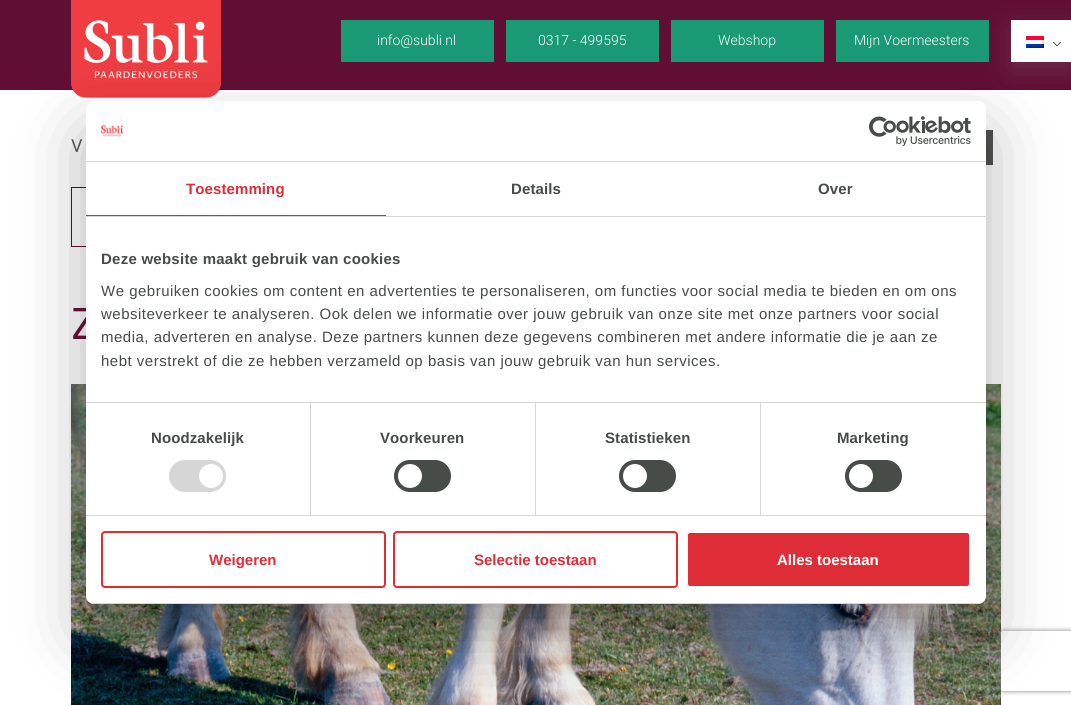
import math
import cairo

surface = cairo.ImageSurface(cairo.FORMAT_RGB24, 1071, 705)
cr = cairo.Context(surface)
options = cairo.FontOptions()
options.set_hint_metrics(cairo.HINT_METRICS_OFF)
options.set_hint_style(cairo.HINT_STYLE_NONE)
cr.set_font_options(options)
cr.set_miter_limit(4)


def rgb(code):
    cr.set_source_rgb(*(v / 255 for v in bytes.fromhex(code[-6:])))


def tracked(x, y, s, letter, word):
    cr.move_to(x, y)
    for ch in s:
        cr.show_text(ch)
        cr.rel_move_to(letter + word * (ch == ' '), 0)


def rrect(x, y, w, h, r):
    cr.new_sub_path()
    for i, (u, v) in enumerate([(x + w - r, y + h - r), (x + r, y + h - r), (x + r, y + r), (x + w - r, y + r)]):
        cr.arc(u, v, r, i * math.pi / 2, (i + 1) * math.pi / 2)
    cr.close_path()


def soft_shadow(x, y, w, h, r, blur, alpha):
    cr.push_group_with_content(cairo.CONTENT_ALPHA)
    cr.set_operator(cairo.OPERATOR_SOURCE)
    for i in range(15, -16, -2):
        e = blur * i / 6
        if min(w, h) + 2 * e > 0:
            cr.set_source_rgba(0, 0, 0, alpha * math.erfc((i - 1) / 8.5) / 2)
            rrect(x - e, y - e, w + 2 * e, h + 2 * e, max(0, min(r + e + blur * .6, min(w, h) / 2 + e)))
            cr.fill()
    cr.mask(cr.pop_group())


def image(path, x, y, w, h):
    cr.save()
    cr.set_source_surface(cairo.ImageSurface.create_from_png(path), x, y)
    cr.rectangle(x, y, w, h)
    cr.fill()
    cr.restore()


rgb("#ffffff")
cr.paint()
rgb("#610e34")
cr.rectangle(0, 0, 1071, 90)
cr.fill()
image("img/1.png", 71, 0, 150, 98)
for x, y, w, h, color in [
    (341, 20, 153, 42, "#199974"),
    (506, 20, 153, 42, "#199974"),
    (671, 20, 153, 42, "#199974"),
    (836, 20, 153, 42, "#199974"),
]:
    rgb(color)
    cr.rectangle(x, y, w, h)
    cr.fill()
rgb("#959da5")
soft_shadow(1011, 28, 60, 42, 0, 12, 0.2)
rgb("#ffffff")
cr.rectangle(1011, 20, 60, 42)
cr.fill()
image("img/2.png", 1053, 41, 8, 5)
image("img/3.png", 1026, 36, 18, 12)
for x, y, w, h, color in [
    (986, 130, 7, 35, "#535351"),
    (71, 187, 15, 1, "#610e34"),
    (71, 246, 15, 1, "#610e34"),
    (71, 187, 1, 60, "#610e34"),
]:
    rgb(color)
    cr.rectangle(x, y, w, h)
    cr.fill()
image("img/4.png", 71, 384, 930, 321)
rgb("#000000")
soft_shadow(86, 133, 900, 503, 8, 34, 0.3)
cr.save()
cr.set_fill_rule(cairo.FILL_RULE_EVEN_ODD)
cr.new_path()
cr.move_to(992, 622)
cr.line_to(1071, 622)
cr.line_to(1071, 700)
cr.line_to(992, 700)
cr.close_path()
cr.move_to(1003, 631)
cr.line_to(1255, 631)
cr.curve_to(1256, 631, 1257, 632, 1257, 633)
cr.line_to(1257, 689)
cr.curve_to(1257, 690, 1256, 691, 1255, 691)
cr.line_to(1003, 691)
cr.curve_to(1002, 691, 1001, 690, 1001, 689)
cr.line_to(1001, 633)
cr.curve_to(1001, 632, 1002, 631, 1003, 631)
cr.close_path()
cr.clip()
rgb("#808080")
soft_shadow(1001, 631, 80, 60, 2, 2.5, 1)
cr.restore()
cr.select_font_face("Roboto Light")
cr.set_font_size(14)
rgb("#ffffff")
for x, y, s in [
    (377, 45, "info@subli.nl"),
    (538, 45, "0317 - 499595"),
    (718, 45, "Webshop"),
    (854, 45, "Mijn Voermeesters"),
]:
    cr.move_to(x, y)
    cr.show_text(s)
cr.select_font_face("Roboto")
cr.set_font_size(18)
rgb("#535351")
cr.move_to(71, 152)
cr.show_text("V")
cr.select_font_face("Exo 2")
cr.set_font_size(45)
rgb("#610e34")
cr.move_to(71, 339)
cr.show_text("Z")
rgb("#ffffff")
rrect(86, 101, 900, 503, 8)
cr.fill()
rgb("#d6d6d6")
cr.rectangle(86, 161, 900, 1)
cr.fill()
image("img/5.png", 101, 124, 22, 13)
image("img/6.png", 869, 116, 102, 30)
cr.rectangle(86, 216, 900, 1)
cr.fill()
rgb("#df2d38")
cr.rectangle(86, 215, 300, 1)
cr.fill()
cr.select_font_face("Liberation Sans", cairo.FONT_SLANT_NORMAL, cairo.FONT_WEIGHT_BOLD)
cr.set_font_size(15)
tracked(186, 194, "Toestemming", 0.1, 0)
rgb("#474c48")
tracked(511, 194, "Details", 0.1, 0)
tracked(818, 194, "Over", 0.1, 0)
rgb("#d6d6d6")
cr.rectangle(86, 402, 900, 1)
cr.fill()
rgb("#474c48")
tracked(101, 264, "Deze website maakt gebruik van cookies", 0.25, 0)
cr.select_font_face("Liberation Sans")
for x, y, s in [
    (101, 296, "We gebruiken cookies om content en advertenties te personaliseren, om functies voor social media te bieden en om ons"),
    (101, 319, "websiteverkeer te analyseren. Ook delen we informatie over jouw gebruik van onze site met onze partners voor social"),
    (101, 342, "media, adverteren en analyse. Deze partners kunnen deze gegevens combineren met andere informatie die je aan ze"),
    (101, 366, "hebt verstrekt of die ze hebben verzameld op basis van jouw gebruik van hun services."),
]:
    tracked(x, y, s, 0.5, 0)
rgb("#d6d6d6")
cr.rectangle(86, 515, 900, 1)
cr.fill()
cr.rectangle(310, 403, 1, 112)
cr.fill()
cr.select_font_face("Liberation Sans", cairo.FONT_SLANT_NORMAL, cairo.FONT_WEIGHT_BOLD)
rgb("#474c48")
tracked(151, 443, "Noodzakelijk", 0.1, 0)
rgb("#d6d6d6")
rrect(169, 460, 57, 32, 16)
cr.fill()
rgb("#ffffff")
cr.arc(211, 476, 12, 0, 2 * math.pi)
cr.fill()
rgb("#d6d6d6")
cr.rectangle(535, 403, 1, 112)
cr.fill()
rgb("#474c48")
tracked(380, 443, "Voorkeuren", 0.1, 0)
rrect(394, 460, 57, 32, 16)
cr.fill()
rgb("#ffffff")
cr.arc(410, 476, 12, 0, 2 * math.pi)
cr.fill()
rgb("#d6d6d6")
cr.rectangle(760, 403, 1, 112)
cr.fill()
rgb("#474c48")
tracked(605, 443, "Statistieken", 0.1, 0)
rrect(619, 460, 57, 32, 16)
cr.fill()
rgb("#ffffff")
cr.arc(635, 476, 12, 0, 2 * math.pi)
cr.fill()
rgb("#474c48")
tracked(837, 443, "Marketing", 0.1, 0)
rrect(845, 460, 57, 32, 16)
cr.fill()
rgb("#ffffff")
cr.arc(861, 476, 12, 0, 2 * math.pi)
cr.fill()
cr.save()
rrect(86, 101, 900, 503, 8)
cr.clip()
rgb("#d6d6d6")
cr.rectangle(86, 603, 900, 1)
cr.fill()
cr.restore()
rrect(102, 532, 283, 55, 3)
rgb("#df2d38")
cr.stroke()
cr.move_to(209, 565)
cr.show_text("Weigeren")
rrect(394, 532, 283, 55, 3)
cr.stroke()
cr.move_to(474, 565)
cr.show_text("Selectie toestaan")
rrect(687, 532, 283, 55, 3)
cr.fill_preserve()
rgb("#ffffff")
cr.stroke()
cr.move_to(777, 565)
cr.show_text("Alles toestaan")
surface.write_to_png("page.png")
